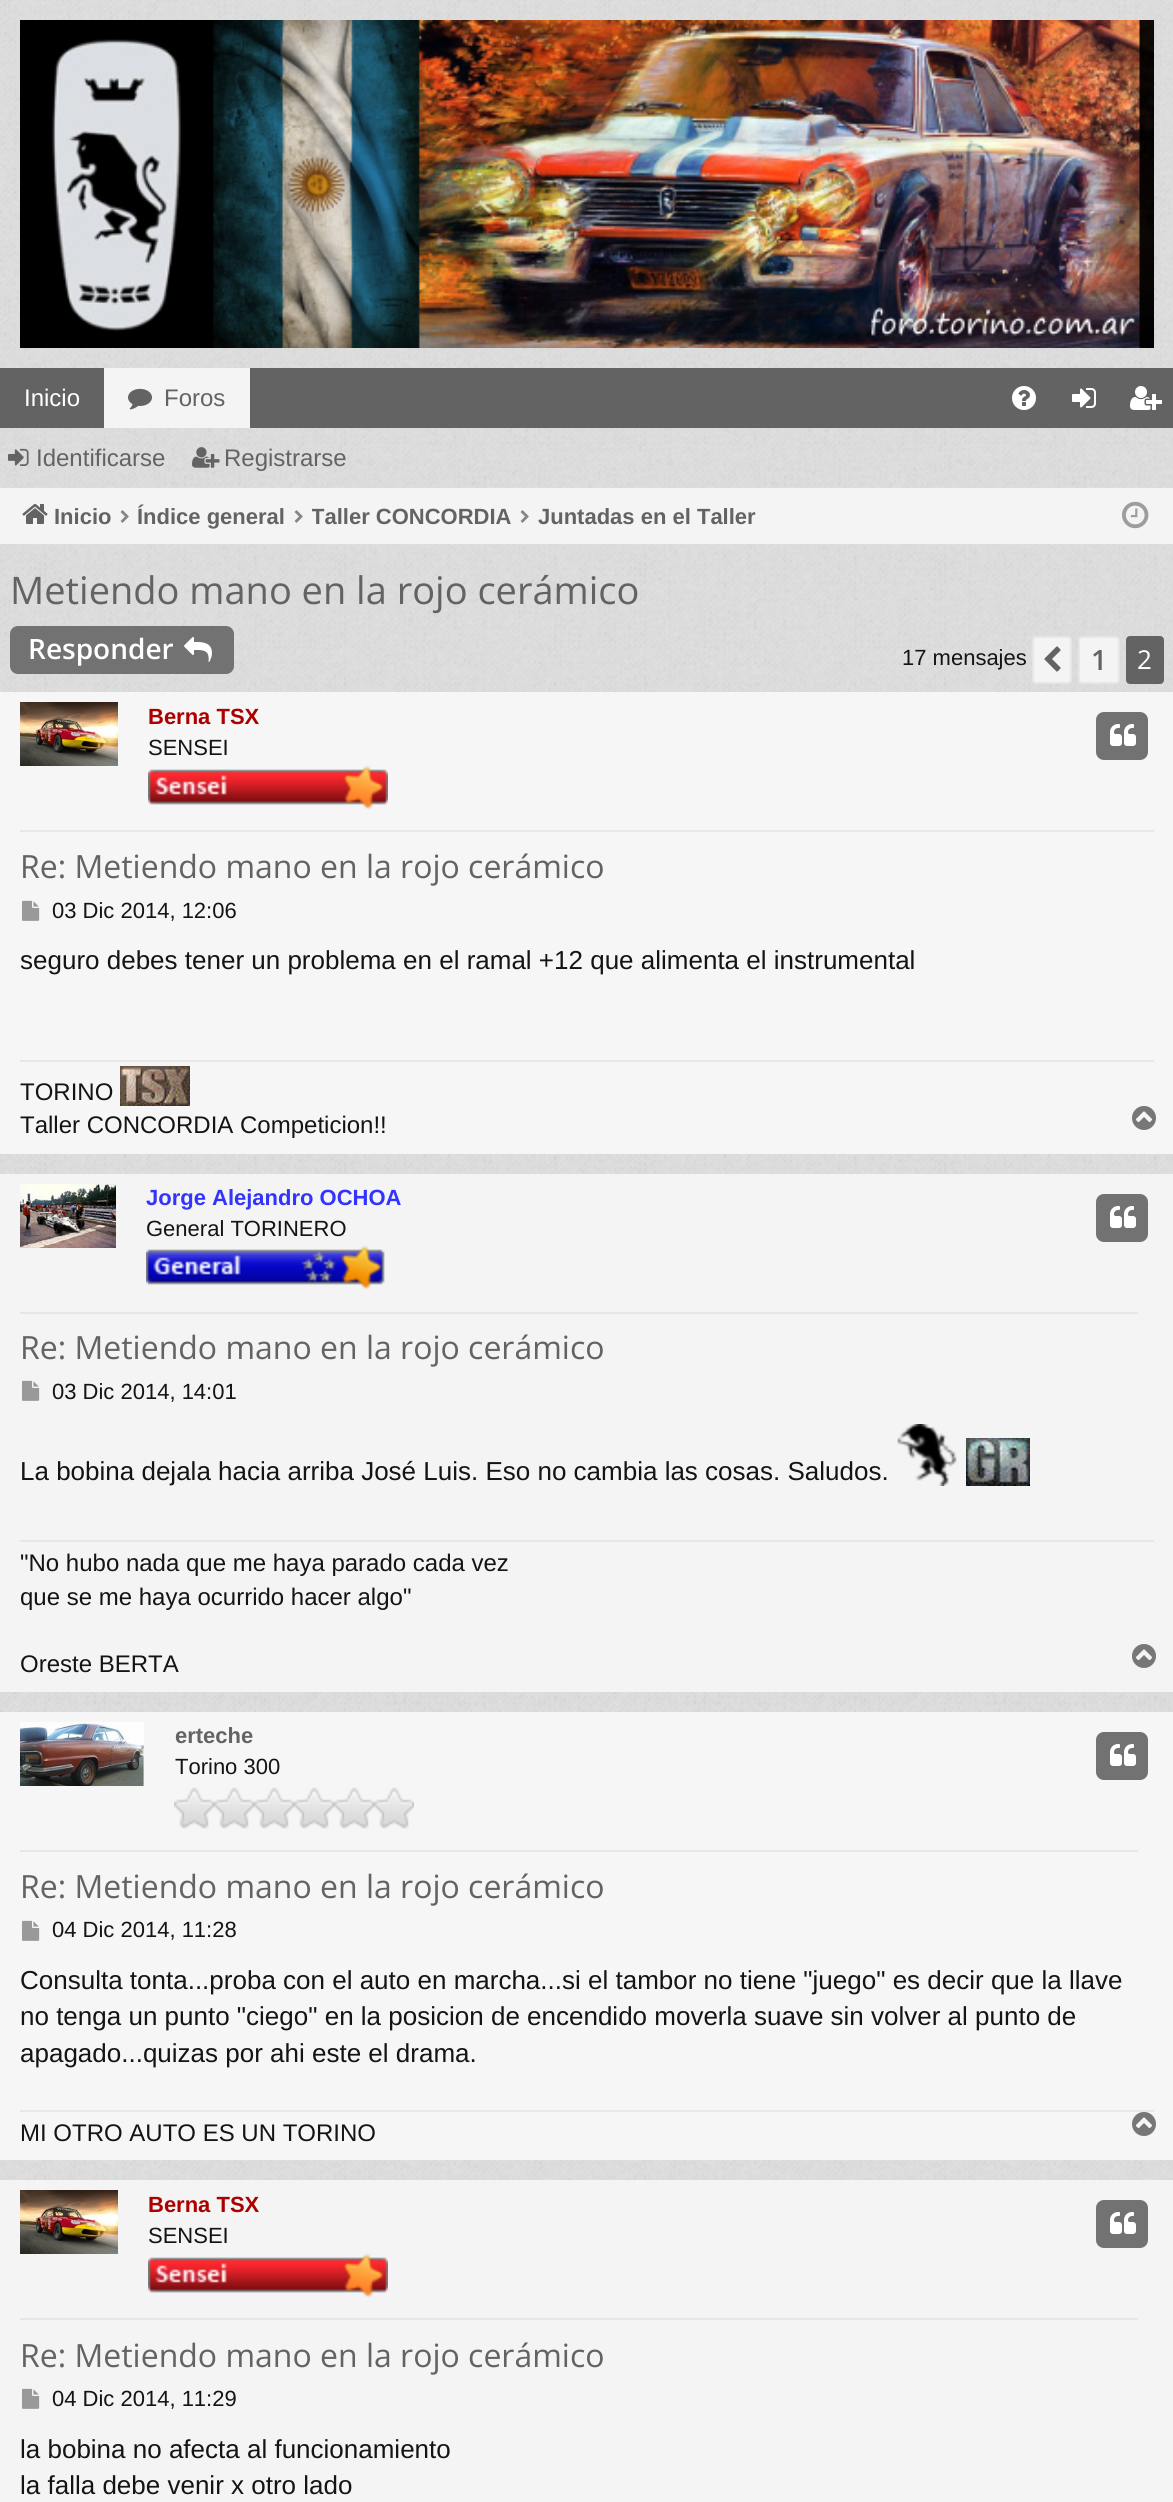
import math
import cairo

surface = cairo.ImageSurface(cairo.FORMAT_RGB24, 1173, 2502)
cr = cairo.Context(surface)
options = cairo.FontOptions()
options.set_hint_metrics(cairo.HINT_METRICS_OFF)
options.set_hint_style(cairo.HINT_STYLE_NONE)
cr.set_font_options(options)
cr.set_miter_limit(4)


def rgb(code):
    cr.set_source_rgb(*(v / 255 for v in bytes.fromhex(code[-6:])))


def rrect(x, y, w, h, r):
    cr.new_sub_path()
    for i, (u, v) in enumerate([(x + w - r, y + h - r), (x + r, y + h - r), (x + r, y + r), (x + w - r, y + r)]):
        cr.arc(u, v, r, i * math.pi / 2, (i + 1) * math.pi / 2)
    cr.close_path()


def image(path, x, y, w, h):
    cr.save()
    cr.set_source_surface(cairo.ImageSurface.create_from_png(path), x, y)
    cr.rectangle(x, y, w, h)
    cr.fill()
    cr.restore()


rgb("#e0e0e0")
cr.paint()
image("img/1.png", 0, 0, 1173, 2180)
image("img/2.png", 20, 20, 1134, 328)
rgb("#636363")
cr.rectangle(0, 368, 1173, 60)
cr.fill()
rgb("#f4f4f4")
cr.rectangle(104, 368, 146, 60)
cr.fill()
image("img/3.png", 128, 388, 24, 22)
image("img/4.png", 1012, 386, 24, 24)
image("img/5.png", 1072, 388, 24, 20)
image("img/6.png", 1130, 386, 32, 24)
image("img/7.png", 8, 448, 21, 18)
image("img/8.png", 192, 447, 28, 21)
cr.rectangle(0, 488, 1173, 56)
cr.fill()
image("img/9.png", 22, 504, 26, 20)
image("img/10.png", 120, 510, 9, 13)
image("img/10.png", 294, 510, 9, 13)
image("img/10.png", 520, 510, 9, 13)
image("img/11.png", 1122, 501, 27, 28)
rgb("#727272")
rrect(11, 627, 222, 46, 7)
cr.fill_preserve()
cr.stroke()
image("img/12.png", 184, 637, 28, 25)
rgb("#f4f4f4")
rrect(1033, 637, 38, 46, 3)
cr.fill_preserve()
rgb("#e7e7e7")
cr.stroke()
image("img/13.png", 1044, 646, 17, 26)
rgb("#f4f4f4")
rrect(1079, 637, 40, 46, 3)
cr.fill_preserve()
rgb("#e7e7e7")
cr.stroke()
rgb("#636363")
rrect(1127, 637, 36, 46, 3)
cr.fill_preserve()
cr.stroke()
rgb("#f6f6f6")
cr.rectangle(0, 692, 1173, 462)
cr.fill()
rgb("#e7e7e7")
cr.rectangle(20, 830, 1134, 2)
cr.fill()
image("img/14.png", 20, 702, 98, 64)
image("img/15.png", 148, 765, 240, 45)
rgb("#727272")
rrect(1097, 713, 50, 46, 7)
cr.fill_preserve()
cr.stroke()
image("img/16.png", 1110, 724, 26, 22)
image("img/17.png", 22, 900, 18, 21)
rgb("#e7e7e7")
cr.rectangle(20, 1060, 1134, 2)
cr.fill()
image("img/18.png", 120, 1066, 70, 40)
image("img/19.png", 1132, 1106, 24, 24)
rgb("#f4f4f4")
cr.rectangle(0, 1174, 1173, 518)
cr.fill()
rgb("#e7e7e7")
cr.rectangle(20, 1312, 1118, 2)
cr.fill()
image("img/20.png", 20, 1184, 96, 64)
image("img/21.png", 146, 1245, 239, 45)
rgb("#727272")
rrect(1097, 1195, 50, 46, 7)
cr.fill_preserve()
cr.stroke()
image("img/16.png", 1110, 1206, 26, 22)
image("img/22.png", 22, 1380, 18, 21)
image("img/23.png", 897, 1424, 60, 62)
image("img/24.png", 966, 1438, 64, 48)
rgb("#e7e7e7")
cr.rectangle(20, 1540, 1134, 2)
cr.fill()
image("img/25.png", 1132, 1644, 24, 24)
rgb("#f6f6f6")
cr.rectangle(0, 1712, 1173, 448)
cr.fill()
rgb("#e7e7e7")
cr.rectangle(20, 1850, 1118, 2)
cr.fill()
image("img/26.png", 20, 1722, 124, 64)
image("img/27.png", 174, 1787, 240, 42)
rgb("#727272")
rrect(1097, 1733, 50, 46, 7)
cr.fill_preserve()
cr.stroke()
image("img/16.png", 1110, 1744, 26, 22)
image("img/17.png", 22, 1920, 18, 21)
rgb("#e7e7e7")
cr.rectangle(20, 2110, 1134, 2)
cr.fill()
image("img/19.png", 1132, 2112, 24, 24)
rgb("#f4f4f4")
cr.rectangle(0, 2180, 1173, 322)
cr.fill()
rgb("#e7e7e7")
cr.rectangle(20, 2318, 1118, 2)
cr.fill()
image("img/14.png", 20, 2190, 98, 64)
image("img/28.png", 148, 2253, 240, 45)
rgb("#727272")
rrect(1097, 2201, 50, 46, 7)
cr.fill_preserve()
cr.stroke()
image("img/16.png", 1110, 2212, 26, 22)
image("img/22.png", 22, 2388, 18, 21)
cr.select_font_face("Liberation Sans")
cr.set_font_size(24)
rgb("#ffffff")
cr.move_to(24, 406)
cr.show_text("Inicio")
rgb("#636363")
for x, y, s in [
    (164, 406, "Foros"),
    (36, 466, "Identificarse"),
    (224, 466, "Registrarse"),
]:
    cr.move_to(x, y)
    cr.show_text(s)
cr.select_font_face("Liberation Sans", cairo.FONT_SLANT_NORMAL, cairo.FONT_WEIGHT_BOLD)
cr.set_font_size(22)
cr.move_to(54, 524)
cr.show_text("Inicio")
cr.move_to(137, 524)
cr.show_text("Índice general")
cr.save()
cr.rectangle(312, 494, 200, 44)
cr.clip()
cr.move_to(311, 524)
cr.show_text("Taller CONCORDIA")
cr.restore()
cr.move_to(538, 524)
cr.show_text("Juntadas en el Taller")
cr.select_font_face("Open Sans")
cr.set_font_size(38)
cr.move_to(10, 604)
cr.show_text("Metiendo mano en la rojo cerámico")
cr.select_font_face("Open Sans SemiBold")
cr.set_font_size(28)
rgb("#ffffff")
cr.move_to(28, 659)
cr.show_text("Responder")
cr.select_font_face("Liberation Sans")
cr.set_font_size(22)
rgb("#141414")
cr.move_to(902, 665)
cr.show_text("17 mensajes")
cr.select_font_face("Open Sans SemiBold")
cr.set_font_size(28)
rgb("#636363")
cr.move_to(1091, 670)
cr.show_text("1")
cr.select_font_face("Open Sans")
cr.set_font_size(26)
rgb("#ffffff")
cr.move_to(1137, 669)
cr.show_text("2")
cr.select_font_face("Liberation Sans", cairo.FONT_SLANT_NORMAL, cairo.FONT_WEIGHT_BOLD)
cr.set_font_size(22)
rgb("#aa0000")
cr.move_to(148, 724)
cr.show_text("Berna TSX")
cr.select_font_face("Liberation Sans")
rgb("#141414")
cr.move_to(148, 755)
cr.show_text("SENSEI")
cr.select_font_face("Open Sans")
cr.set_font_size(32)
rgb("#636363")
cr.move_to(20, 878)
cr.show_text("Re: Metiendo mano en la rojo cerámico")
cr.select_font_face("Liberation Sans")
cr.set_font_size(22)
rgb("#141414")
cr.move_to(52, 918)
cr.show_text("03 Dic 2014, 12:06")
cr.set_font_size(26)
cr.move_to(20, 969)
cr.show_text("seguro debes tener un problema en el ramal +12 que alimenta el instrumental")
cr.set_font_size(24)
cr.move_to(20, 1100)
cr.show_text("TORINO")
cr.move_to(20, 1133)
cr.show_text("Taller CONCORDIA Competicion!!")
cr.select_font_face("Liberation Sans", cairo.FONT_SLANT_NORMAL, cairo.FONT_WEIGHT_BOLD)
cr.set_font_size(22)
rgb("#3333ff")
cr.move_to(146, 1205)
cr.show_text("Jorge Alejandro OCHOA")
cr.select_font_face("Liberation Sans")
rgb("#141414")
cr.move_to(146, 1236)
cr.show_text("General TORINERO")
cr.select_font_face("Open Sans")
cr.set_font_size(32)
rgb("#636363")
cr.move_to(20, 1359)
cr.show_text("Re: Metiendo mano en la rojo cerámico")
cr.select_font_face("Liberation Sans")
cr.set_font_size(22)
rgb("#141414")
cr.move_to(52, 1399)
cr.show_text("03 Dic 2014, 14:01")
cr.set_font_size(26)
cr.move_to(20, 1480)
cr.show_text("La bobina dejala hacia arriba José Luis. Eso no cambia las cosas. Saludos.")
cr.set_font_size(24)
for x, y, s in [
    (20, 1571, "\"No hubo nada que me haya parado cada vez"),
    (20, 1605, "que se me haya ocurrido hacer algo\""),
    (20, 1672, "Oreste BERTA"),
]:
    cr.move_to(x, y)
    cr.show_text(s)
cr.select_font_face("Liberation Sans", cairo.FONT_SLANT_NORMAL, cairo.FONT_WEIGHT_BOLD)
cr.set_font_size(22)
rgb("#636363")
cr.move_to(175, 1743)
cr.show_text("erteche")
cr.select_font_face("Liberation Sans")
rgb("#141414")
cr.move_to(175, 1774)
cr.show_text("Torino 300")
cr.select_font_face("Open Sans")
cr.set_font_size(32)
rgb("#636363")
cr.move_to(20, 1898)
cr.show_text("Re: Metiendo mano en la rojo cerámico")
cr.select_font_face("Liberation Sans")
cr.set_font_size(22)
rgb("#141414")
cr.move_to(52, 1937)
cr.show_text("04 Dic 2014, 11:28")
cr.set_font_size(26)
for x, y, s in [
    (20, 1989, "Consulta tonta...proba con el auto en marcha...si el tambor no tiene \"juego\" es decir que la llave"),
    (20, 2025, "no tenga un punto \"ciego\" en la posicion de encendido moverla suave sin volver al punto de"),
    (20, 2062, "apagado...quizas por ahi este el drama."),
]:
    cr.move_to(x, y)
    cr.show_text(s)
cr.set_font_size(24)
cr.move_to(20, 2141)
cr.show_text("MI OTRO AUTO ES UN TORINO")
cr.select_font_face("Liberation Sans", cairo.FONT_SLANT_NORMAL, cairo.FONT_WEIGHT_BOLD)
cr.set_font_size(22)
rgb("#aa0000")
cr.move_to(148, 2212)
cr.show_text("Berna TSX")
cr.select_font_face("Liberation Sans")
rgb("#141414")
cr.move_to(148, 2243)
cr.show_text("SENSEI")
cr.select_font_face("Open Sans")
cr.set_font_size(32)
rgb("#636363")
cr.move_to(20, 2367)
cr.show_text("Re: Metiendo mano en la rojo cerámico")
cr.select_font_face("Liberation Sans")
cr.set_font_size(22)
rgb("#141414")
cr.move_to(52, 2406)
cr.show_text("04 Dic 2014, 11:29")
cr.set_font_size(26)
cr.move_to(20, 2458)
cr.show_text("la bobina no afecta al funcionamiento")
cr.move_to(20, 2494)
cr.show_text("la falla debe venir x otro lado")
surface.write_to_png("page.png")
